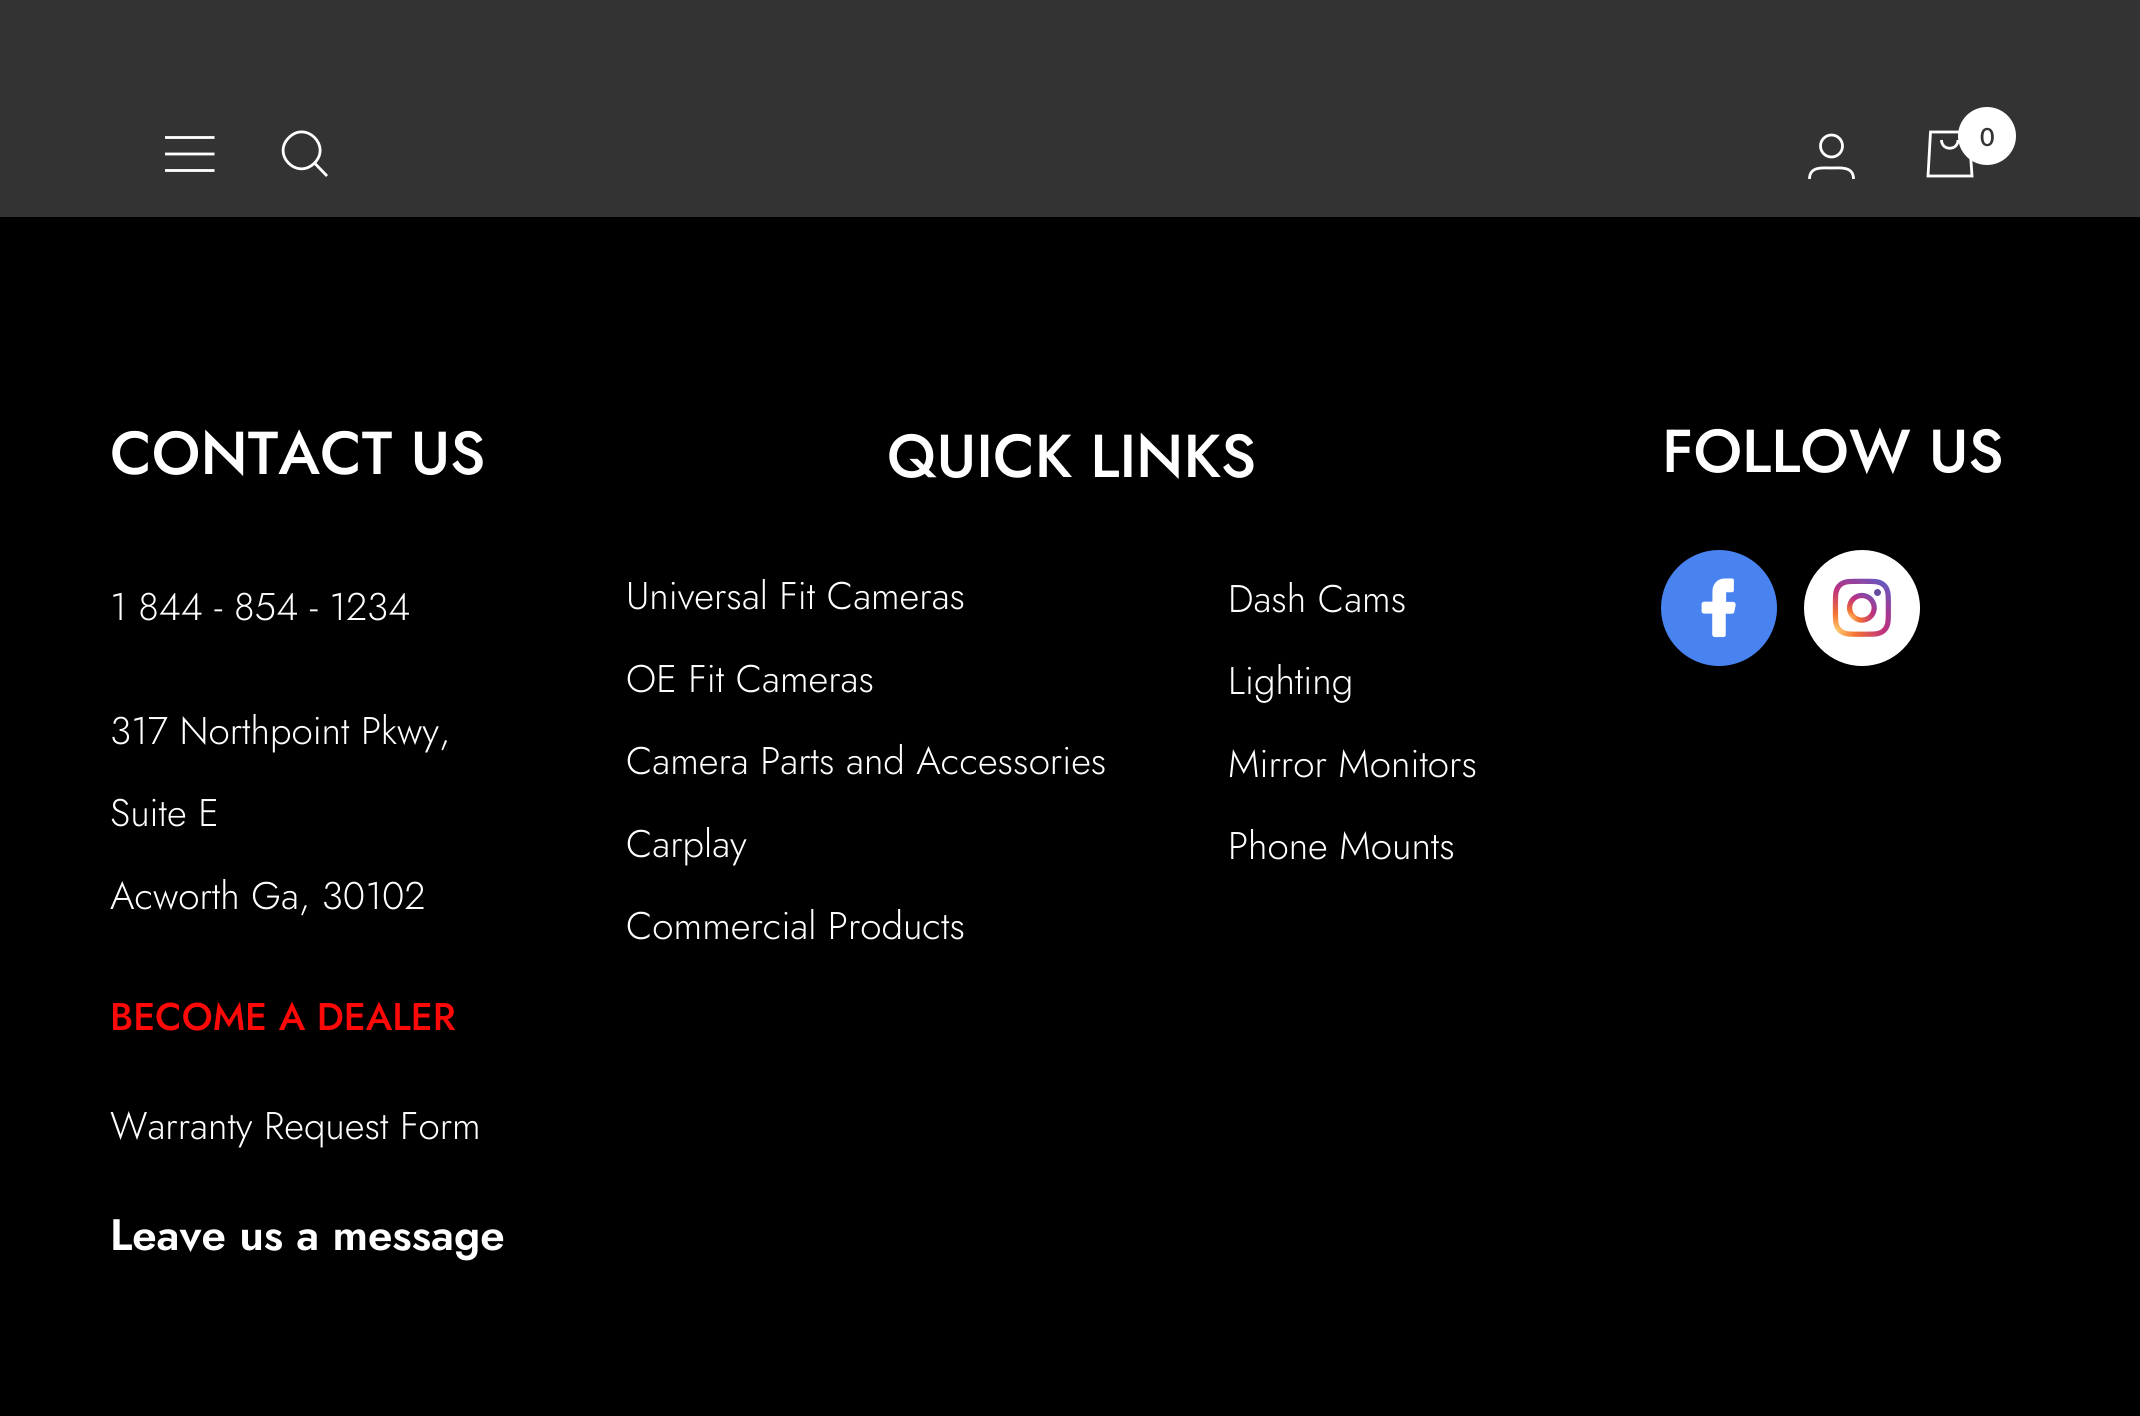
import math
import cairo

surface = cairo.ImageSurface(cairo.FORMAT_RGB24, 2140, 1416)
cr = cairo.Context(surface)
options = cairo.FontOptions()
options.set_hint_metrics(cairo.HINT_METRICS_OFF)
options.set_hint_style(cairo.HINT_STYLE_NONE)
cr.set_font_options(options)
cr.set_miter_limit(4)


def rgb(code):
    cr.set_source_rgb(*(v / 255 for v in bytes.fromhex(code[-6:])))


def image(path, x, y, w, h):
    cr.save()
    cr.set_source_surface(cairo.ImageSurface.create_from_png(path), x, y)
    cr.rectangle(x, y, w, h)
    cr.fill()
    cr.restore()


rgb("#000000")
cr.paint()
rgb("#333333")
cr.rectangle(0, 0, 2140, 217)
cr.fill()
cr.new_path()
cr.move_to(165, 137.5)
cr.line_to(214.5, 137.5)
cr.move_to(165, 170.5)
cr.line_to(214.5, 170.5)
cr.close_path()
cr.move_to(165, 154)
cr.line_to(214.5, 154)
cr.close_path()
rgb("#ffffff")
cr.set_line_width(2.8)
cr.stroke()
cr.new_path()
cr.move_to(314.5, 163)
cr.curve_to(331.5, 146, 306, 120.5, 289, 137.5)
cr.curve_to(271.5, 154.5, 297, 180.5, 314.5, 163)
cr.close_path()
cr.move_to(314.5, 163)
cr.line_to(327, 176)
cr.stroke()
cr.arc(1831.5, 146, 11, 0, 2 * math.pi)
cr.stroke()
cr.new_path()
cr.move_to(1809.5, 179)
cr.curve_to(1809.5, 166, 1823, 168, 1831.5, 168)
cr.curve_to(1840, 168, 1853.5, 166, 1853.5, 179)
cr.stroke()
cr.new_path()
cr.move_to(1930.5, 132)
cr.line_to(1969, 132)
cr.line_to(1972, 176)
cr.line_to(1928, 176)
cr.close_path()
cr.move_to(1941.5, 140)
cr.curve_to(1941.5, 151, 1958, 151, 1958, 140)
cr.stroke()
cr.arc(1987, 136, 29, 0, 2 * math.pi)
cr.fill()
rgb("#4883f0")
cr.arc(1719, 608, 58, 0, 2 * math.pi)
cr.fill()
image("img/1.png", 1701, 578, 35, 60)
rgb("#ffffff")
cr.arc(1862, 608, 58, 0, 2 * math.pi)
cr.fill()
image("img/2.png", 1832, 578, 59, 59)
cr.select_font_face("Lato SemiBold")
cr.set_font_size(25)
rgb("#333333")
cr.move_to(1980, 146)
cr.show_text("0")
cr.select_font_face("Jost Medium")
cr.set_font_size(60.5)
rgb("#ffffff")
cr.move_to(110, 474)
cr.show_text("CONTACT US")
cr.select_font_face("Jost Light")
cr.set_font_size(38.5)
for x, y, s in [
    (110, 620, "1 844 - 854 - 1234"),
    (110, 744, "317 Northpoint Pkwy,"),
    (110, 826, "Suite E"),
    (110, 909, "Acworth Ga, 30102"),
]:
    cr.move_to(x, y)
    cr.show_text(s)
cr.select_font_face("Jost Medium")
rgb("#ff0808")
cr.move_to(110, 1030)
cr.show_text("BECOME A DEALER")
cr.select_font_face("Jost Light")
rgb("#ffffff")
cr.move_to(110, 1139)
cr.show_text("Warranty Request Form")
cr.select_font_face("Jost SemiBold")
cr.set_font_size(44)
cr.move_to(110, 1250)
cr.show_text("Leave us a message")
cr.select_font_face("Jost Medium")
cr.set_font_size(60.5)
cr.move_to(887, 477)
cr.show_text("QUICK LINKS")
cr.select_font_face("Jost Light")
cr.set_font_size(38.5)
for x, y, s in [
    (626, 609, "Universal Fit Cameras"),
    (626, 692, "OE Fit Cameras"),
    (626, 774, "Camera Parts and Accessories"),
    (626, 857, "Carplay"),
    (626, 939, "Commercial Products"),
    (1228, 612, "Dash Cams"),
    (1228, 694, "Lighting"),
    (1228, 777, "Mirror Monitors"),
    (1228, 859, "Phone Mounts"),
]:
    cr.move_to(x, y)
    cr.show_text(s)
cr.select_font_face("Jost Medium")
cr.set_font_size(60.5)
cr.move_to(1662, 472)
cr.show_text("FOLLOW US")
surface.write_to_png("page.png")
